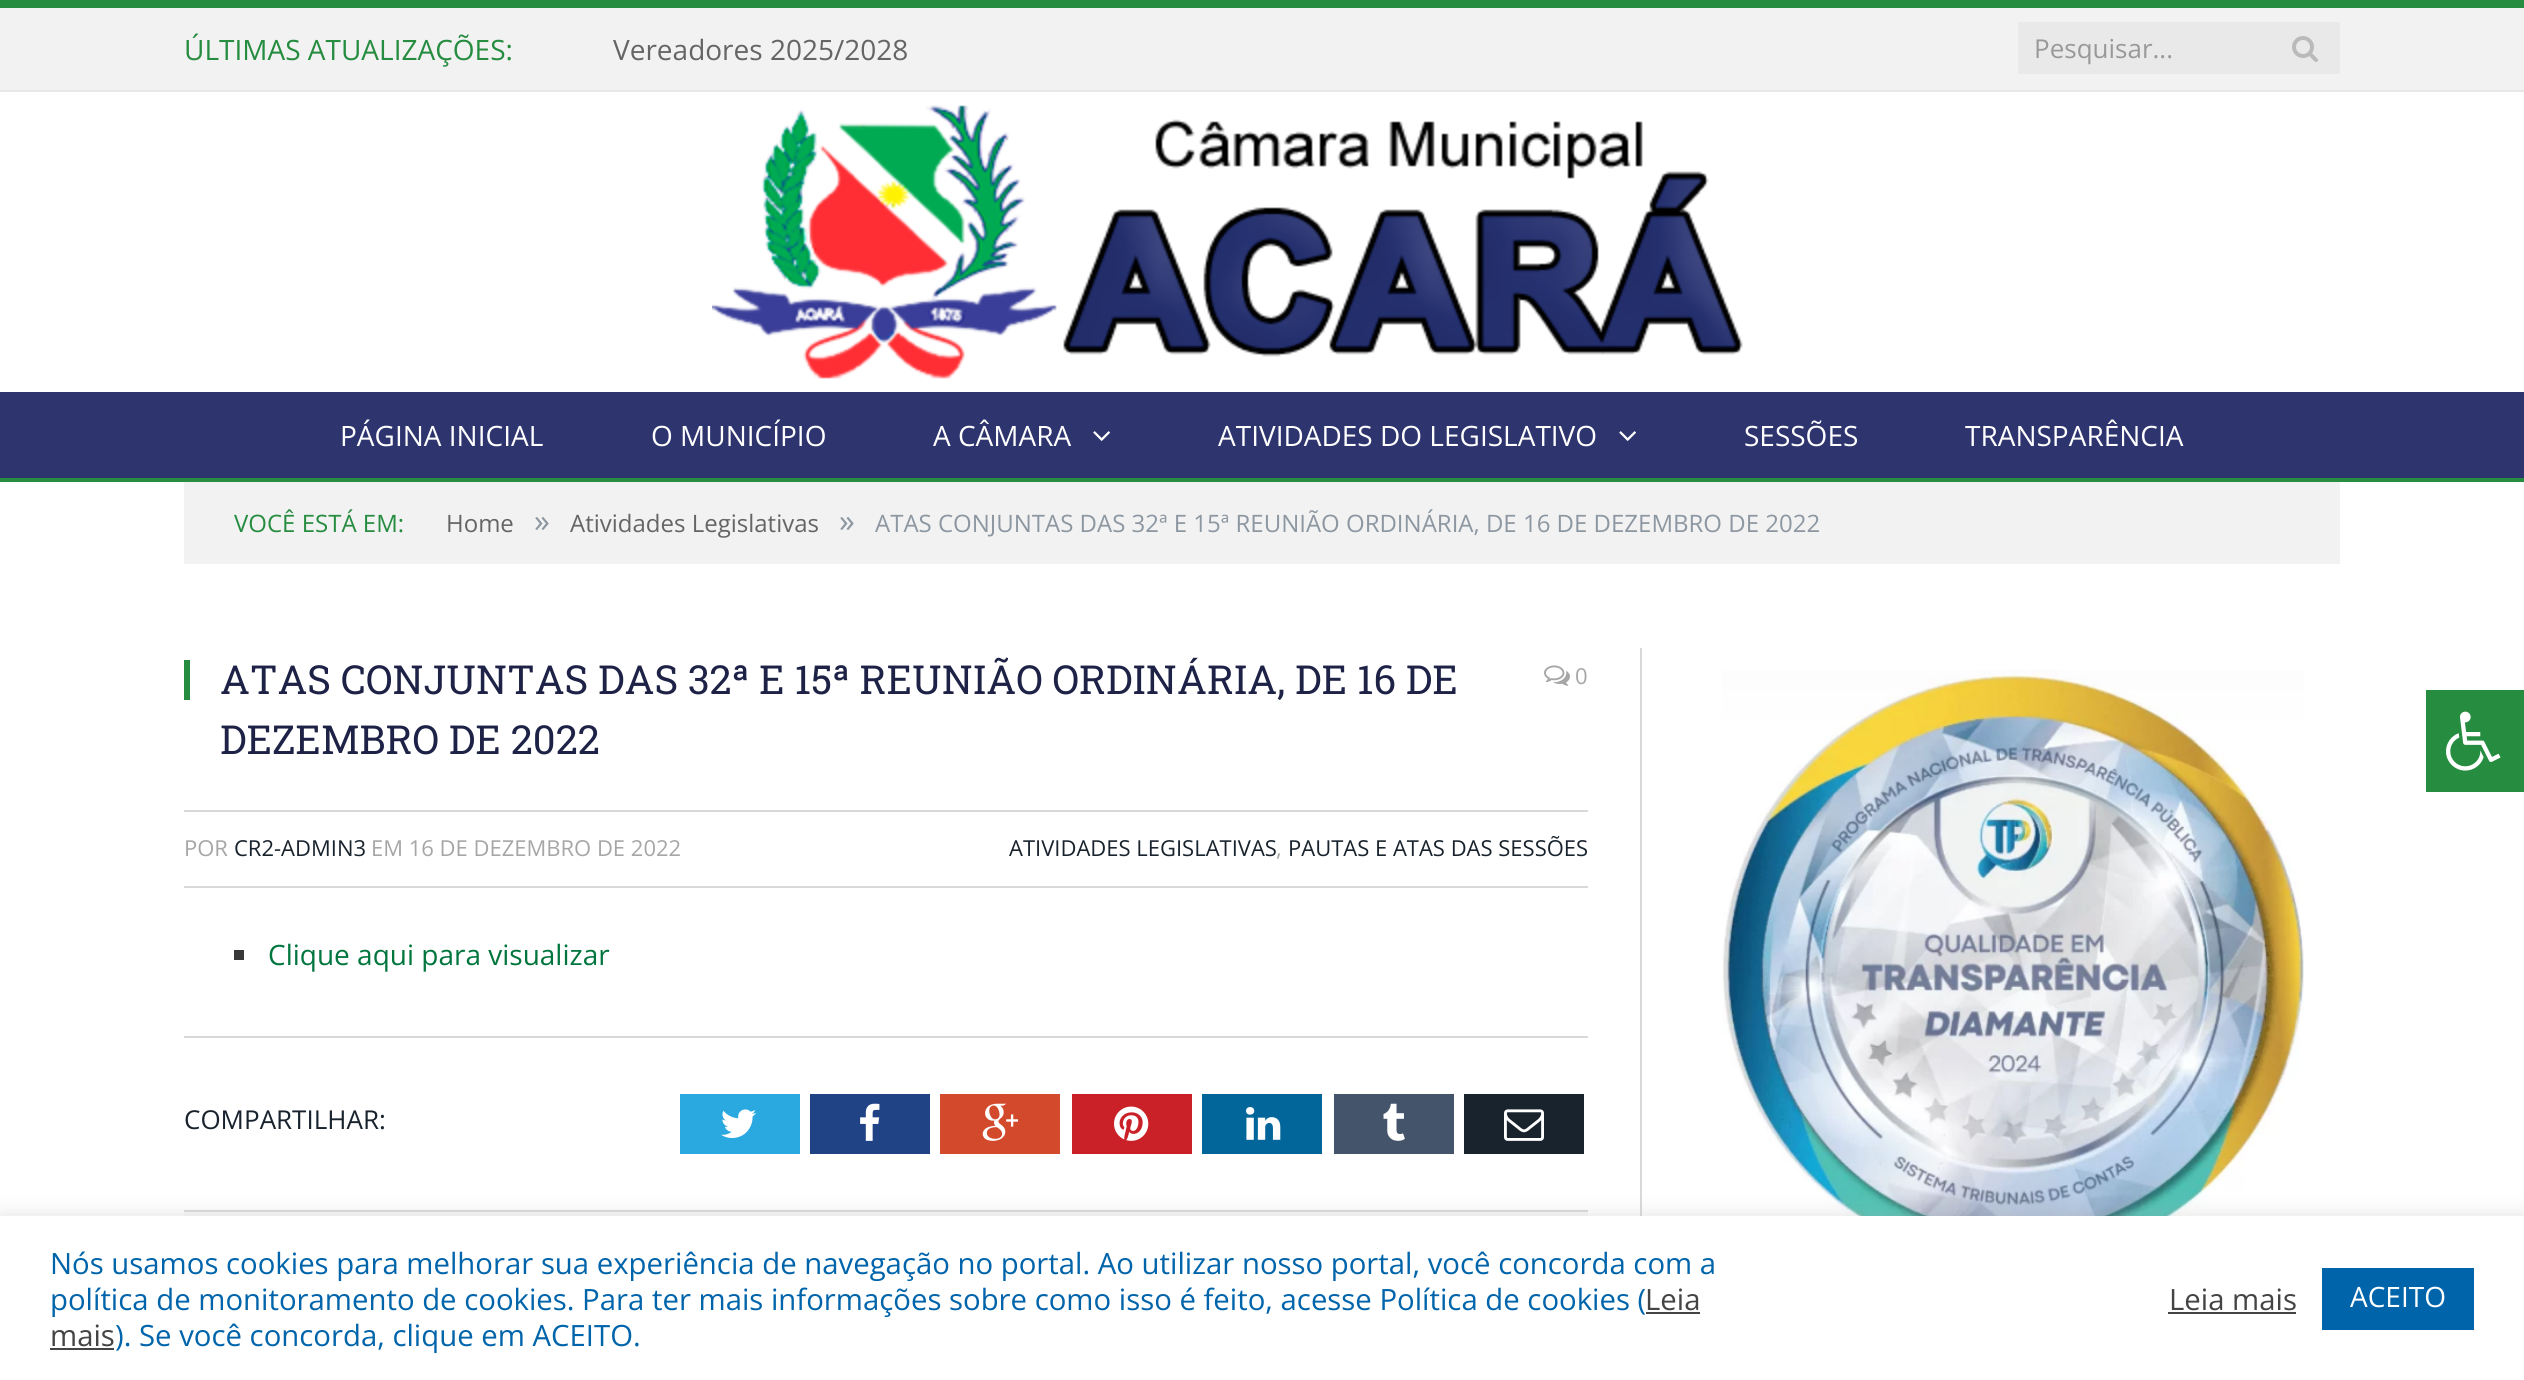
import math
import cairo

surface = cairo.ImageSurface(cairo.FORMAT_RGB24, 2524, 1380)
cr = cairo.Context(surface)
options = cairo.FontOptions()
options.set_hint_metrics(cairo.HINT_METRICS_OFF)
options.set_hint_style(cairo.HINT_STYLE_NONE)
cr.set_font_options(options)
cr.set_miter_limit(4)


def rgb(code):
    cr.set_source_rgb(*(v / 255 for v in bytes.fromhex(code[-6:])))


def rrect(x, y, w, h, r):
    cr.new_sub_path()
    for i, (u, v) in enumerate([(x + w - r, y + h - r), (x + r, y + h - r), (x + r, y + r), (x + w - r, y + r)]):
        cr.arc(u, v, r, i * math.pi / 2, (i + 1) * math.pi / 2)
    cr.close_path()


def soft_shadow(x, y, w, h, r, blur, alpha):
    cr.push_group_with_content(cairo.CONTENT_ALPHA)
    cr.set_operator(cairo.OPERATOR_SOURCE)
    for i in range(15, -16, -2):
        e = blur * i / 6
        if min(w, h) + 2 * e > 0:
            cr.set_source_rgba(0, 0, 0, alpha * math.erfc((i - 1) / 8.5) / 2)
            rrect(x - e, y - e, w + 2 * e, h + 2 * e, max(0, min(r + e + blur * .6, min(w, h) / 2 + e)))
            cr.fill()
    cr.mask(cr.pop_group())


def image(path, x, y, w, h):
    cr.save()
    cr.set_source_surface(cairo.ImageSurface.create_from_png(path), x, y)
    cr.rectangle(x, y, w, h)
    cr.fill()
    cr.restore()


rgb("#ffffff")
cr.paint()
for x, y, w, h, color in [
    (0, 8, 2524, 82, "#f2f2f2"),
    (0, 0, 2524, 8, "#268c40"),
    (0, 90, 2524, 2, "#e7e7e7"),
    (2018, 22, 322, 52, "#e9e9e9"),
]:
    rgb(color)
    cr.rectangle(x, y, w, h)
    cr.fill()
image("img/1.png", 2292, 36, 26, 26)
image("img/2.png", 712, 105, 1031, 274)
rgb("#2d346e")
cr.rectangle(0, 392, 2524, 86)
cr.fill()
rgb("#268c40")
cr.rectangle(0, 478, 2524, 4)
cr.fill()
image("img/3.png", 1093, 431, 17, 10)
image("img/3.png", 1619, 431, 17, 10)
rgb("#f2f2f2")
cr.rectangle(184, 482, 2156, 82)
cr.fill()
rgb("#268c40")
cr.rectangle(184, 660, 6, 40)
cr.fill()
image("img/4.png", 1544, 665, 26, 21)
for x, y, w, h, color in [
    (184, 810, 1404, 2, "#d9d9d9"),
    (184, 886, 1404, 2, "#d9d9d9"),
    (234, 950, 10, 10, "#383838"),
    (184, 1036, 1404, 2, "#d9d9d9"),
    (680, 1094, 120, 60, "#2aa9e0"),
]:
    rgb(color)
    cr.rectangle(x, y, w, h)
    cr.fill()
image("img/5.png", 721, 1109, 35, 29)
rgb("#204385")
cr.rectangle(810, 1094, 120, 60)
cr.fill()
image("img/6.png", 860, 1103, 20, 38)
rgb("#d3492c")
cr.rectangle(940, 1094, 120, 60)
cr.fill()
image("img/7.png", 982, 1103, 37, 38)
rgb("#ca2128")
cr.rectangle(1072, 1094, 120, 60)
cr.fill()
image("img/8.png", 1114, 1106, 35, 35)
rgb("#02669a")
cr.rectangle(1202, 1094, 120, 60)
cr.fill()
image("img/9.png", 1246, 1107, 35, 33)
rgb("#44546b")
cr.rectangle(1334, 1094, 120, 60)
cr.fill()
image("img/10.png", 1383, 1103, 22, 38)
rgb("#19232d")
cr.rectangle(1464, 1094, 120, 60)
cr.fill()
image("img/11.png", 1504, 1109, 40, 32)
for x, y, w, h, color in [
    (184, 1212, 1404, 4, "#f9f9f9"),
    (184, 1210, 1404, 2, "#d9d9d9"),
    (1640, 648, 2, 568, "#d9d9d9"),
]:
    rgb(color)
    cr.rectangle(x, y, w, h)
    cr.fill()
image("img/12.png", 1722, 670, 582, 546)
rgb("#268c40")
cr.rectangle(2426, 690, 98, 102)
cr.fill()
image("img/13.png", 2446, 711, 55, 60)
rgb("#acabab")
soft_shadow(0, 1214, 2524, 164, 0, 10, 0.3)
for x, y, w, h, color in [
    (0, 1216, 2524, 164, "#ffffff"),
    (1646, 1312, 54, 2, "#444444"),
    (50, 1348, 64, 2, "#444444"),
    (2168, 1312, 128, 2, "#444444"),
    (2322, 1268, 152, 62, "#0064ab"),
]:
    rgb(color)
    cr.rectangle(x, y, w, h)
    cr.fill()
cr.select_font_face("Open Sans")
cr.set_font_size(28)
rgb("#268c40")
cr.move_to(184, 60)
cr.show_text("ÚLTIMAS ATUALIZAÇÕES:")
rgb("#656565")
cr.move_to(613, 60)
cr.show_text("Vereadores 2025/2028")
cr.set_font_size(26)
rgb("#999999")
cr.move_to(2034, 58)
cr.show_text("Pesquisar...")
cr.set_font_size(28)
rgb("#ffffff")
for x, y, s in [
    (340, 446, "PÁGINA INICIAL"),
    (651, 446, "O MUNICÍPIO"),
    (933, 446, "A CÂMARA"),
    (1218, 446, "ATIVIDADES DO LEGISLATIVO"),
    (1744, 446, "SESSÕES"),
    (1965, 446, "TRANSPARÊNCIA"),
]:
    cr.move_to(x, y)
    cr.show_text(s)
cr.set_font_size(24)
rgb("#268c40")
cr.move_to(234, 532)
cr.show_text("VOCÊ ESTÁ EM:")
rgb("#656565")
cr.move_to(446, 532)
cr.show_text("Home")
cr.set_font_size(32)
rgb("#8d97a1")
cr.move_to(534, 532)
cr.show_text("»")
cr.set_font_size(24)
rgb("#656565")
cr.move_to(570, 532)
cr.show_text("Atividades Legislativas")
cr.set_font_size(32)
rgb("#8d97a1")
cr.move_to(839, 532)
cr.show_text("»")
cr.set_font_size(24)
cr.move_to(875, 532)
cr.show_text("ATAS CONJUNTAS DAS 32ª E 15ª REUNIÃO ORDINÁRIA, DE 16 DE DEZEMBRO DE 2022")
cr.select_font_face("Roboto Slab")
cr.set_font_size(40)
rgb("#1d2246")
cr.move_to(220, 694)
cr.show_text("ATAS CONJUNTAS DAS 32ª E 15ª REUNIÃO ORDINÁRIA, DE 16 DE")
cr.move_to(220, 754)
cr.show_text("DEZEMBRO DE 2022")
cr.select_font_face("Open Sans")
cr.set_font_size(22)
rgb("#a6a6a6")
cr.move_to(1575, 684)
cr.show_text("0")
cr.move_to(184, 856)
cr.show_text("POR")
rgb("#19232d")
cr.move_to(234, 856)
cr.show_text("CR2-ADMIN3")
rgb("#a6a6a6")
cr.move_to(371, 856)
cr.show_text("EM 16 DE DEZEMBRO DE 2022")
rgb("#19232d")
cr.move_to(1009, 856)
cr.show_text("ATIVIDADES LEGISLATIVAS")
rgb("#a6a6a6")
cr.move_to(1276, 856)
cr.show_text(",")
rgb("#19232d")
cr.move_to(1288, 856)
cr.show_text("PAUTAS E ATAS DAS SESSÕES")
cr.set_font_size(28)
rgb("#00753e")
cr.move_to(268, 965)
cr.show_text("Clique aqui para visualizar")
cr.set_font_size(26)
rgb("#19232d")
cr.move_to(184, 1129)
cr.show_text("COMPARTILHAR:")
cr.set_font_size(29.33)
rgb("#0064ab")
cr.move_to(50, 1274)
cr.show_text("Nós usamos cookies para melhorar sua experiência de navegação no portal. Ao utilizar nosso portal, você concorda com a")
cr.move_to(50, 1310)
cr.show_text("política de monitoramento de cookies. Para ter mais informações sobre como isso é feito, acesse Política de cookies (")
rgb("#444444")
cr.move_to(1645, 1310)
cr.show_text("Leia")
cr.move_to(50, 1346)
cr.show_text("mais")
rgb("#0064ab")
cr.move_to(115, 1346)
cr.show_text("). Se você concorda, clique em ACEITO.")
rgb("#444444")
cr.move_to(2169, 1310)
cr.show_text("Leia mais")
cr.set_font_size(28)
rgb("#ffffff")
cr.move_to(2350, 1307)
cr.show_text("ACEITO")
surface.write_to_png("page.png")
